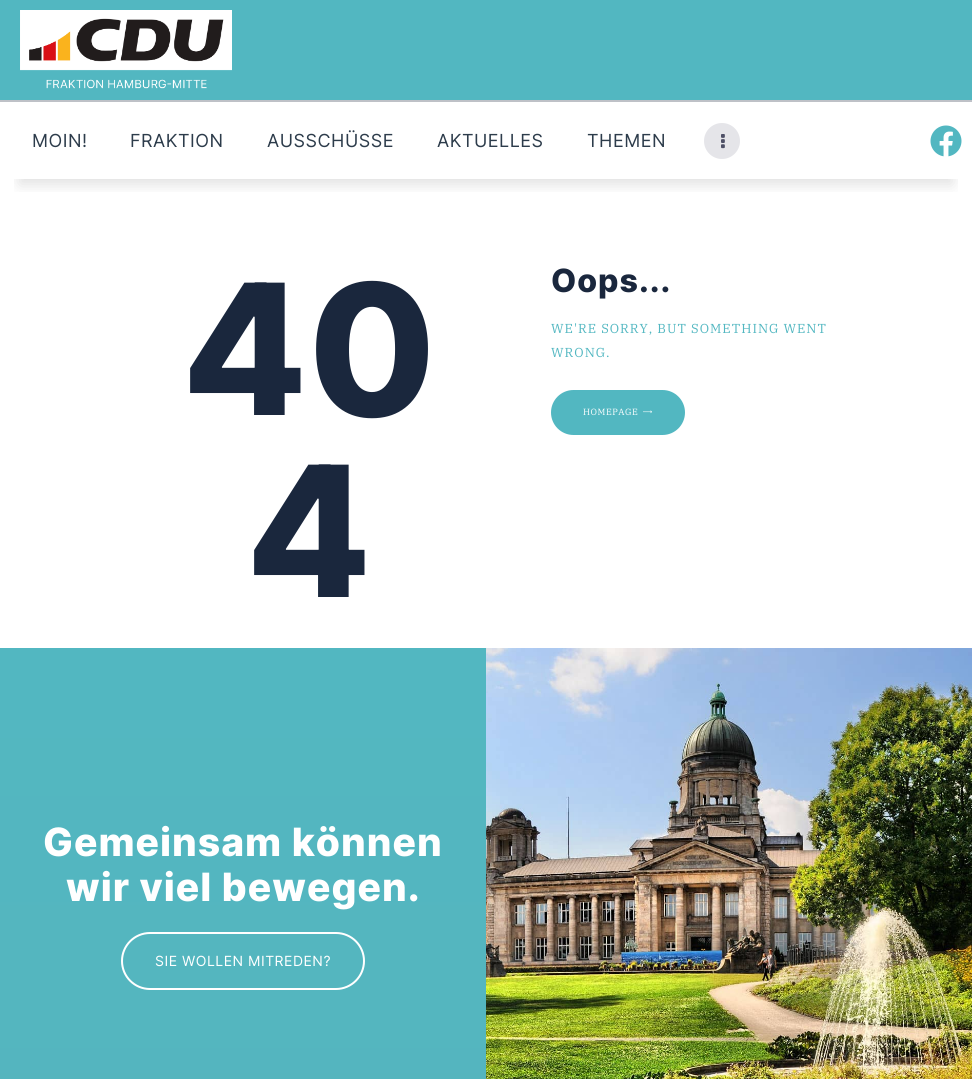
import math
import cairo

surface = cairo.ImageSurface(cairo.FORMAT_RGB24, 972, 1079)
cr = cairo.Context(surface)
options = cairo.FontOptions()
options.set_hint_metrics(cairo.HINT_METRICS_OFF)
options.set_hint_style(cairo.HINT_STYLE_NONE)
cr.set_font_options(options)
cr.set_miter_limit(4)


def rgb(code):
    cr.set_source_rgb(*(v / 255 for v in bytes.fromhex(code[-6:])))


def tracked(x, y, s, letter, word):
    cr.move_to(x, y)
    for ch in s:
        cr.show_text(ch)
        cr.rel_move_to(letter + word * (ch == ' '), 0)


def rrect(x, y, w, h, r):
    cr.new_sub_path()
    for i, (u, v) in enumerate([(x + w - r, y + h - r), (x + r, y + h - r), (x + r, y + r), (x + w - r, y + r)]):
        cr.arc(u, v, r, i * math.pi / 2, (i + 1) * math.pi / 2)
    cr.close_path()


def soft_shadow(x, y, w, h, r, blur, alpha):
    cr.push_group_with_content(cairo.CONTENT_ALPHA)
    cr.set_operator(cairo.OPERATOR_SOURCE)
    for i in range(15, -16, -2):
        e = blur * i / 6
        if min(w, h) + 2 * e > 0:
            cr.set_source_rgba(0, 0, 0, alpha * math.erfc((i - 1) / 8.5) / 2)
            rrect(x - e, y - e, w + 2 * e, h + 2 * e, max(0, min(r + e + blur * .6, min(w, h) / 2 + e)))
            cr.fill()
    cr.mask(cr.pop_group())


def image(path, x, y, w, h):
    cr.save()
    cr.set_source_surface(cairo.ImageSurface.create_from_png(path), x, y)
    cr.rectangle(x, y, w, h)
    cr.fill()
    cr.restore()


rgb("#ffffff")
cr.paint()
rgb("#52b7c1")
cr.rectangle(0, 0, 972, 100)
cr.fill()
image("img/1.png", 20, 10, 212, 79)
cr.save()
cr.rectangle(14, 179, 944, 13)
cr.clip()
rgb("#000000")
soft_shadow(20, 145, 932, 39, 0, 7.5, 0.13)
cr.restore()
rgb("#bec1c7")
cr.rectangle(0, 100, 972, 2)
cr.fill()
rgb("#e5e5e9")
cr.arc(722, 141, 18, 0, 2 * math.pi)
cr.fill()
image("img/2.png", 721, 134, 4, 15)
image("img/3.png", 930, 125, 32, 32)
rgb("#52b7c1")
rrect(551, 390, 134, 45, 22.5)
cr.fill()
image("img/4.png", 643, 410, 9, 4)
gradient = cairo.LinearGradient(243, 648, 243, 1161)
gradient.add_color_stop_rgba(0, 0.322, 0.718, 0.757, 1)
gradient.add_color_stop_rgba(1, 0.333, 0.71, 0.745, 1)
cr.set_source(gradient)
cr.rectangle(0, 648, 486, 431)
cr.fill()
rrect(122, 933, 242, 56, 28)
rgb("#ffffff")
cr.stroke()
image("img/5.png", 486, 648, 486, 431)
cr.select_font_face("Inter")
cr.set_font_size(18)
rgb("#2d3c4b")
for x, y, s in [
    (32, 147, "MOIN!"),
    (130, 147, "FRAKTION"),
    (267, 147, "AUSSCHÜSSE"),
    (437, 147, "AKTUELLES"),
    (587, 147, "THEMEN"),
]:
    tracked(x, y, s, 0.5, 0)
cr.select_font_face("Inter ExtraBold")
cr.set_font_size(182)
rgb("#1a273d")
cr.move_to(182, 415)
cr.show_text("40")
cr.move_to(246, 597)
cr.show_text("4")
cr.set_font_size(32)
tracked(551, 292, "Oops...", 1, 0)
cr.select_font_face("IBM Plex Serif")
cr.set_font_size(13)
rgb("#52b7c1")
tracked(551, 333, "WE'RE SORRY, BUT SOMETHING WENT", 1, 0)
tracked(551, 357, "WRONG.", 1, 0)
cr.set_font_size(9)
rgb("#ffffff")
tracked(583, 415, "HOMEPAGE", 0.5, 0)
cr.select_font_face("Inter ExtraBold")
cr.set_font_size(39)
tracked(43, 856, "Gemeinsam können", 1, 0)
tracked(66, 901, "wir viel bewegen.", 1, 0)
cr.select_font_face("Inter")
cr.set_font_size(14)
tracked(155, 966, "SIE WOLLEN MITREDEN?", 0.5, 0)
surface.write_to_png("page.png")
